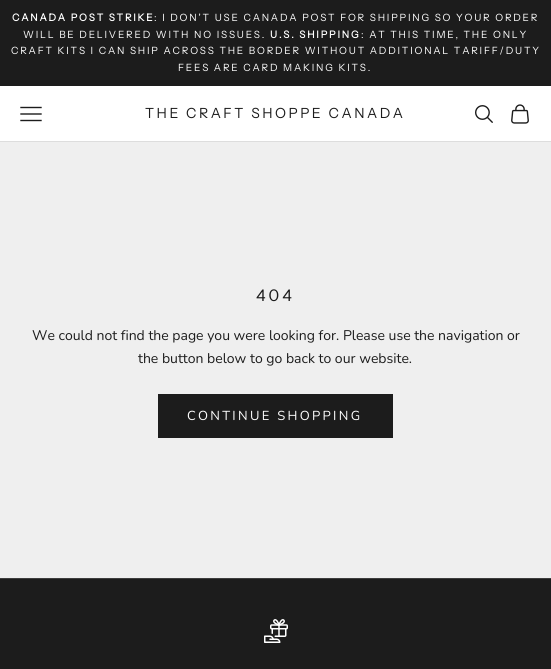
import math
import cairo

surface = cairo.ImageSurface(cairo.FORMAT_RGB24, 551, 669)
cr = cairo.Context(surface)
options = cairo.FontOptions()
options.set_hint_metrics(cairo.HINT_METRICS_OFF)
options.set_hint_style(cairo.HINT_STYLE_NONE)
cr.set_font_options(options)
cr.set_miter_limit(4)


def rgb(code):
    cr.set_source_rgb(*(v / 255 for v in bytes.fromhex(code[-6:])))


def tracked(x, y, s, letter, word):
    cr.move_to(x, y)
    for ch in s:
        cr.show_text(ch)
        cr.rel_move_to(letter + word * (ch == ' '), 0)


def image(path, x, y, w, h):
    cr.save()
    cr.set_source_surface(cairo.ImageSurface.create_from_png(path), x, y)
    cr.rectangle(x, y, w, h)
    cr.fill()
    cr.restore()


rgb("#efefef")
cr.paint()
for x, y, w, h, color in [
    (0, 0, 551, 86, "#1c1c1c"),
    (0, 86, 551, 55, "#ffffff"),
    (0, 141, 551, 1, "#dddddd"),
]:
    rgb(color)
    cr.rectangle(x, y, w, h)
    cr.fill()
cr.new_path()
cr.move_to(21, 120.5)
cr.line_to(41, 120.5)
cr.move_to(21, 114)
cr.line_to(41, 114)
cr.move_to(21, 107.5)
cr.line_to(41, 107.5)
rgb("#1c1c1c")
cr.set_line_width(1.4)
cr.set_line_cap(cairo.LINE_CAP_SQUARE)
cr.stroke()
image("img/1.png", 475, 105, 18, 18)
image("img/2.png", 511, 104, 18, 20)
cr.rectangle(158.5, 394.5, 234, 43)
cr.fill_preserve()
cr.set_line_width(1)
cr.set_line_cap(cairo.LINE_CAP_BUTT)
cr.stroke()
cr.rectangle(0, 579, 551, 90)
cr.fill()
rgb("#3e3e3e")
cr.rectangle(0, 578, 551, 1)
cr.fill()
image("img/3.png", 264, 619, 24, 24)
cr.select_font_face("Instrument Sans", cairo.FONT_SLANT_NORMAL, cairo.FONT_WEIGHT_BOLD)
cr.set_font_size(10)
rgb("#ffffff")
tracked(12, 21, "CANADA POST STRIKE", 1.8, 0)
cr.select_font_face("Instrument Sans")
tracked(154, 21, ": I DON'T USE CANADA POST FOR SHIPPING SO YOUR ORDER", 1.8, 0)
tracked(23, 38, "WILL BE DELIVERED WITH NO ISSUES.", 1.8, 0)
cr.select_font_face("Instrument Sans", cairo.FONT_SLANT_NORMAL, cairo.FONT_WEIGHT_BOLD)
tracked(270, 38, "U.S. SHIPPING", 1.8, 0)
cr.select_font_face("Instrument Sans")
for x, y, s in [
    (361, 38, ": AT THIS TIME, THE ONLY"),
    (11, 54, "CRAFT KITS I CAN SHIP ACROSS THE BORDER WITHOUT ADDITIONAL TARIFF/DUTY"),
    (178, 71, "FEES ARE CARD MAKING KITS."),
]:
    tracked(x, y, s, 1.8, 0)
cr.set_font_size(14)
rgb("#1c1c1c")
tracked(145, 118, "THE CRAFT SHOPPE CANADA", 2.5, 0)
cr.set_font_size(16)
tracked(256, 301, "404", 3, 0)
cr.select_font_face("Nunito")
cr.set_font_size(14)
cr.move_to(32, 340)
cr.show_text("We could not find the page you were looking for. Please use the navigation or")
cr.move_to(138, 363)
cr.show_text("the button below to go back to our website.")
cr.set_font_size(13)
rgb("#ffffff")
tracked(187, 420, "CONTINUE SHOPPING", 2.3, 0)
surface.write_to_png("page.png")
